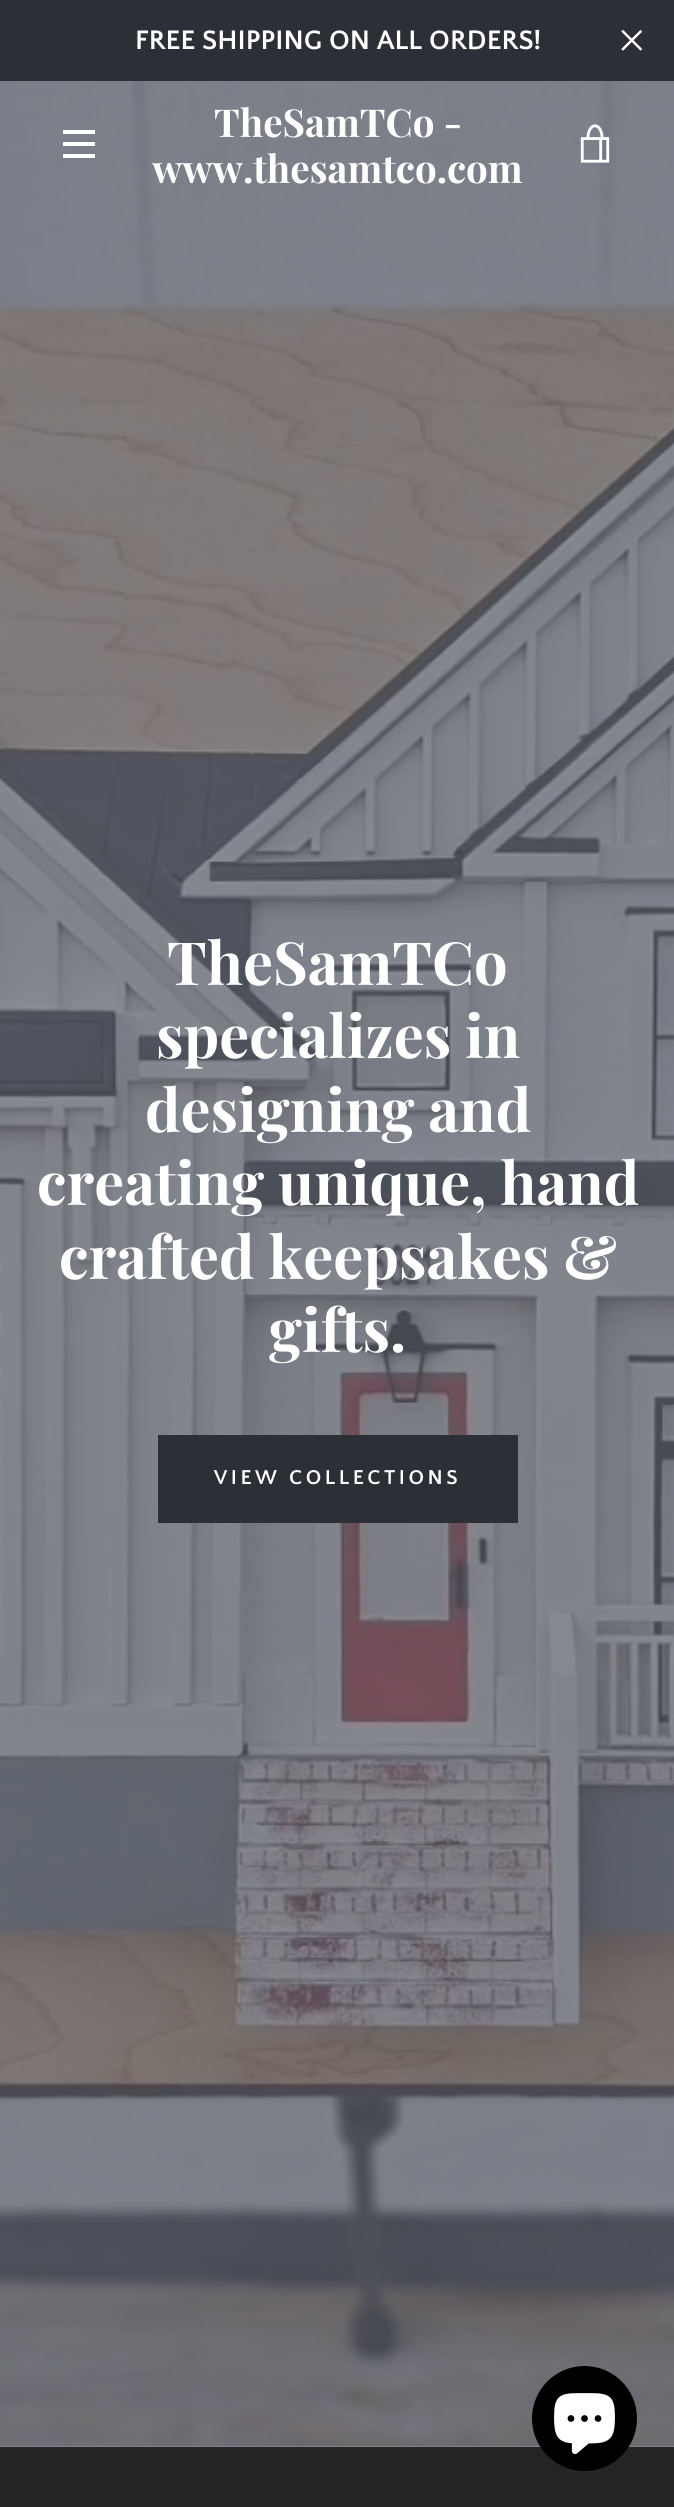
import math
import cairo

surface = cairo.ImageSurface(cairo.FORMAT_RGB24, 674, 2507)
cr = cairo.Context(surface)
options = cairo.FontOptions()
options.set_hint_metrics(cairo.HINT_METRICS_OFF)
options.set_hint_style(cairo.HINT_STYLE_NONE)
cr.set_font_options(options)
cr.set_miter_limit(4)


def rgb(code):
    cr.set_source_rgb(*(v / 255 for v in bytes.fromhex(code[-6:])))


def tracked(x, y, s, letter, word):
    cr.move_to(x, y)
    for ch in s:
        cr.show_text(ch)
        cr.rel_move_to(letter + word * (ch == ' '), 0)


def image(path, x, y, w, h):
    cr.save()
    cr.set_source_surface(cairo.ImageSurface.create_from_png(path), x, y)
    cr.rectangle(x, y, w, h)
    cr.fill()
    cr.restore()


rgb("#242424")
cr.paint()
rgb("#2d2f36")
cr.rectangle(0, 0, 674, 81)
cr.fill()
image("img/1.png", 621, 30, 21, 21)
rgb("#878991")
cr.rectangle(0, 2446, 674, 1)
cr.fill()
image("img/3.png", 0, 81, 674, 2366)
for x, y, w, h, color in [
    (63, 130, 32, 4, "#ffffff"),
    (63, 142, 32, 4, "#ffffff"),
    (63, 154, 32, 4, "#ffffff"),
]:
    rgb(color)
    cr.rectangle(x, y, w, h)
    cr.fill()
image("img/2.png", 580, 124, 30, 39)
rgb("#2d2f36")
cr.rectangle(158, 1435, 360, 88)
cr.fill()
rgb("#000000")
cr.arc(584.5, 2418.5, 52.5, 0, 2 * math.pi)
cr.fill()
image("img/4.png", 554, 2393, 61, 61)
cr.select_font_face("Quattrocento Sans", cairo.FONT_SLANT_NORMAL, cairo.FONT_WEIGHT_BOLD)
cr.set_font_size(28)
rgb("#ffffff")
cr.move_to(135, 49)
cr.show_text("FREE SHIPPING ON ALL ORDERS!")
cr.select_font_face("Playfair Display", cairo.FONT_SLANT_NORMAL, cairo.FONT_WEIGHT_BOLD)
cr.set_font_size(38.5)
cr.move_to(214, 137)
cr.show_text("TheSamTCo -")
cr.move_to(152, 183)
cr.show_text("www.thesamtco.com")
cr.set_font_size(59.5)
for x, y, s in [
    (167, 985, "TheSamTCo"),
    (156, 1058, "specializes in"),
    (145, 1132, "designing and"),
    (37, 1205, "creating unique, hand"),
    (59, 1279, "crafted keepsakes &"),
    (269, 1352, "gifts."),
]:
    cr.move_to(x, y)
    cr.show_text(s)
cr.select_font_face("Quattrocento Sans", cairo.FONT_SLANT_NORMAL, cairo.FONT_WEIGHT_BOLD)
cr.set_font_size(21)
tracked(214, 1484, "VIEW COLLECTIONS", 3.5, 0)
surface.write_to_png("page.png")
